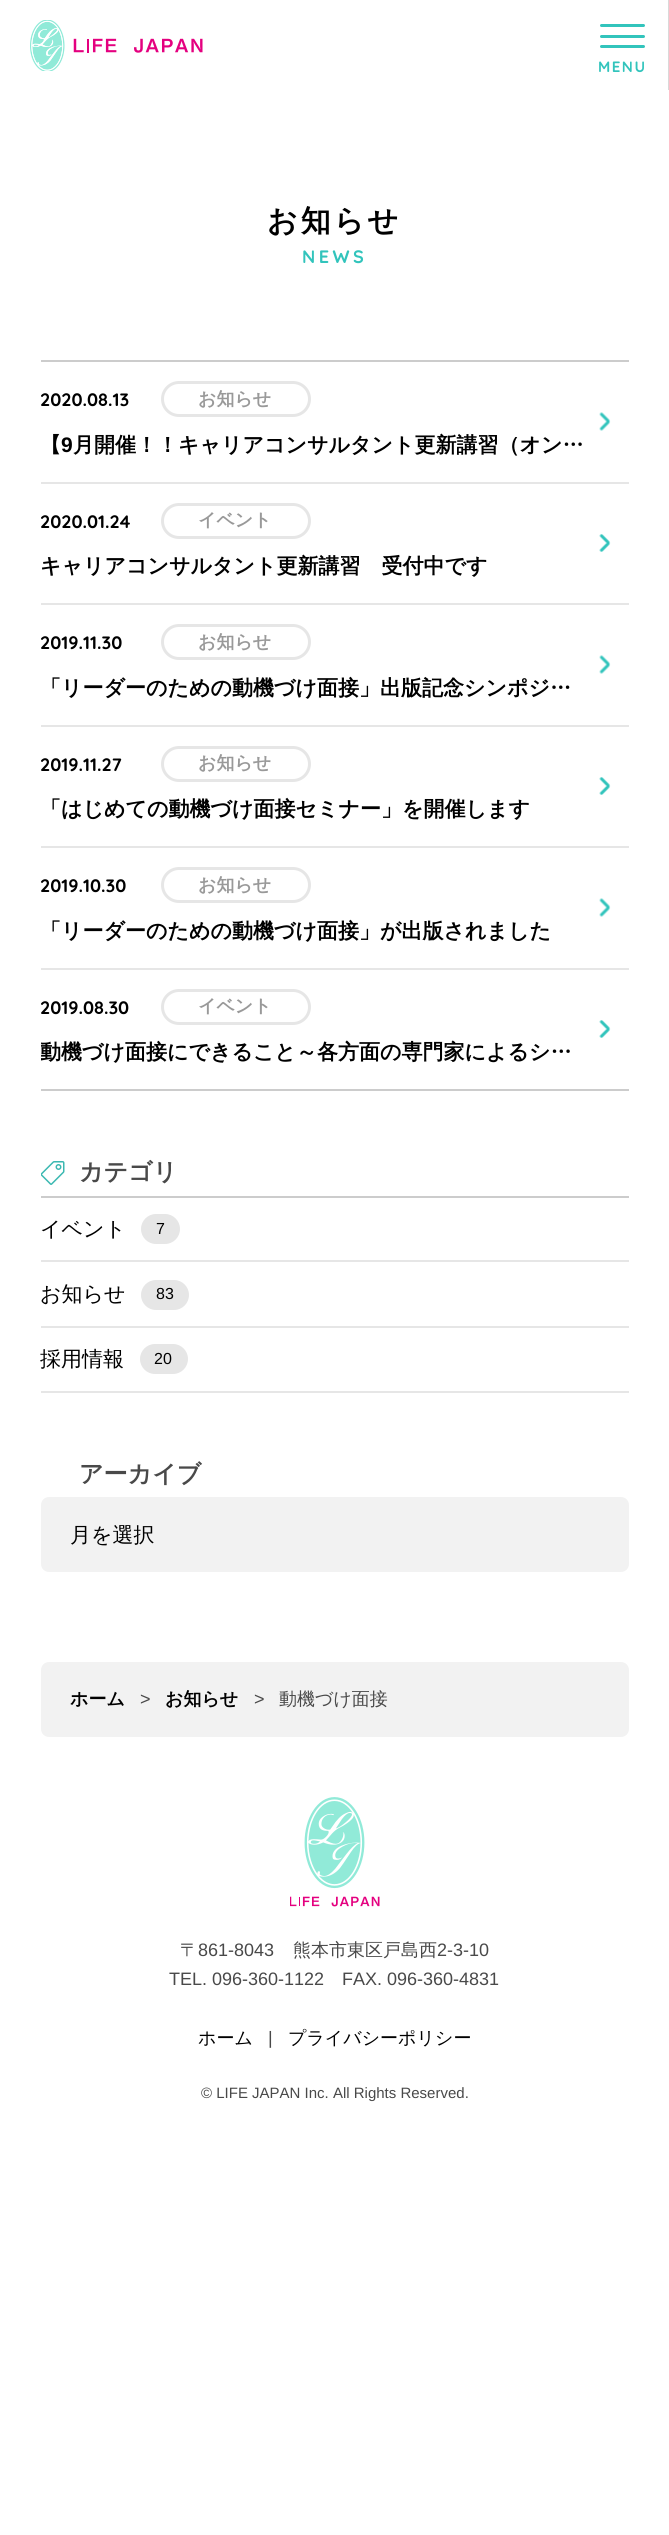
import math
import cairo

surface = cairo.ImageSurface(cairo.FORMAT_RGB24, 669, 2535)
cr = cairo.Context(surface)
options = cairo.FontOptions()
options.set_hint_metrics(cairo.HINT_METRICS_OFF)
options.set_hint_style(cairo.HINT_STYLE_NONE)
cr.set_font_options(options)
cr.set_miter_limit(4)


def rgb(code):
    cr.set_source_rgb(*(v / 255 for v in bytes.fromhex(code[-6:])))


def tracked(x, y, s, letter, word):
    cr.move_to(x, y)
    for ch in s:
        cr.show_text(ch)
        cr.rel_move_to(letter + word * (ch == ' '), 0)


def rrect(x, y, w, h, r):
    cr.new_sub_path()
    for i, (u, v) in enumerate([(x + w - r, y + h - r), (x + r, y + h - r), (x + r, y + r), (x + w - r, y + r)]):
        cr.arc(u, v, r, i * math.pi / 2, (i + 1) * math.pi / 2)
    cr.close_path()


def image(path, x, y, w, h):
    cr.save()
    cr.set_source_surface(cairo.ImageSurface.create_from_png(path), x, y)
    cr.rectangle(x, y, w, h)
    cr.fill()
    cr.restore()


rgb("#ffffff")
cr.paint()
rgb("#d9d9d9")
cr.rectangle(668, 0, 1, 90)
cr.fill()
image("img/1.png", 30, 20, 173, 51)
rgb("#32c4bc")
rrect(600, 24, 45, 3, 1.5)
cr.fill()
rrect(600, 35, 45, 3, 1.5)
cr.fill()
rrect(600, 45, 45, 3, 1.5)
cr.fill()
for x, y, w, h, color in [
    (41, 360, 588, 2, "#cccccc"),
    (41, 1089, 588, 2, "#cccccc"),
    (41, 482, 588, 2, "#e6e6e6"),
]:
    rgb(color)
    cr.rectangle(x, y, w, h)
    cr.fill()
rrect(162.5, 382.5, 147, 33, 16.5)
cr.set_line_width(3)
cr.stroke()
image("img/2.png", 599, 412, 12, 19)
cr.rectangle(41, 603, 588, 2)
cr.fill()
rrect(162.5, 504.5, 147, 33, 16.5)
cr.stroke()
image("img/3.png", 599, 534, 12, 18)
cr.rectangle(41, 725, 588, 2)
cr.fill()
rrect(162.5, 625.5, 147, 33, 16.5)
cr.stroke()
image("img/2.png", 599, 655, 12, 19)
cr.rectangle(41, 846, 588, 2)
cr.fill()
rrect(162.5, 747.5, 147, 33, 16.5)
cr.stroke()
image("img/3.png", 599, 777, 12, 18)
cr.rectangle(41, 968, 588, 2)
cr.fill()
rrect(162.5, 868.5, 147, 33, 16.5)
cr.stroke()
image("img/2.png", 599, 898, 12, 19)
rrect(162.5, 990.5, 147, 33, 16.5)
cr.stroke()
image("img/3.png", 599, 1020, 12, 18)
image("img/4.png", 41, 1161, 24, 24)
rgb("#cccccc")
cr.rectangle(41, 1196, 588, 2)
cr.fill()
rgb("#e6e6e6")
cr.rectangle(41, 1260, 588, 2)
cr.fill()
rrect(141, 1214, 39, 30, 15)
cr.fill()
cr.rectangle(41, 1326, 588, 2)
cr.fill()
rrect(141, 1280, 48, 30, 15)
cr.fill()
cr.rectangle(41, 1391, 588, 2)
cr.fill()
rrect(140, 1344, 48, 30, 15)
cr.fill()
rgb("#f2f2f2")
rrect(41, 1497, 588, 75, 8)
cr.fill()
rrect(41, 1662, 588, 75, 8)
cr.fill()
image("img/5.png", 290, 1797, 90, 110)
cr.select_font_face("Quicksand", cairo.FONT_SLANT_NORMAL, cairo.FONT_WEIGHT_BOLD)
cr.set_font_size(15)
rgb("#32c4bc")
tracked(598, 72, "MENU", 1.5, 0)
cr.select_font_face("WenQuanYi Zen Hei", cairo.FONT_SLANT_NORMAL, cairo.FONT_WEIGHT_BOLD)
cr.set_font_size(30)
rgb("#000000")
tracked(267, 231, "お知らせ", 3, 0)
cr.select_font_face("Quicksand", cairo.FONT_SLANT_NORMAL, cairo.FONT_WEIGHT_BOLD)
cr.set_font_size(18)
rgb("#32c4bc")
tracked(302, 263, "NEWS", 3.5, 0)
rgb("#000000")
cr.move_to(40, 406)
cr.show_text("2020.08.13")
cr.select_font_face("WenQuanYi Zen Hei", cairo.FONT_SLANT_NORMAL, cairo.FONT_WEIGHT_BOLD)
rgb("#999999")
cr.move_to(198, 405)
cr.show_text("お知らせ")
cr.set_font_size(21)
rgb("#000000")
cr.move_to(40, 452)
cr.show_text("【")
cr.select_font_face("Liberation Sans", cairo.FONT_SLANT_NORMAL, cairo.FONT_WEIGHT_BOLD)
cr.move_to(61, 452)
cr.show_text("9")
cr.select_font_face("WenQuanYi Zen Hei", cairo.FONT_SLANT_NORMAL, cairo.FONT_WEIGHT_BOLD)
cr.move_to(73, 452)
cr.show_text("月開催！！キャリアコンサルタント更新講習（オン…")
cr.select_font_face("Quicksand", cairo.FONT_SLANT_NORMAL, cairo.FONT_WEIGHT_BOLD)
cr.set_font_size(18)
cr.move_to(40, 528)
cr.show_text("2020.01.24")
cr.select_font_face("WenQuanYi Zen Hei", cairo.FONT_SLANT_NORMAL, cairo.FONT_WEIGHT_BOLD)
rgb("#999999")
cr.move_to(198, 526)
cr.show_text("イベント")
cr.set_font_size(21)
rgb("#000000")
cr.move_to(40, 573)
cr.show_text("キャリアコンサルタント更新講習　受付中です")
cr.select_font_face("Quicksand", cairo.FONT_SLANT_NORMAL, cairo.FONT_WEIGHT_BOLD)
cr.set_font_size(18)
cr.move_to(40, 649)
cr.show_text("2019.11.30")
cr.select_font_face("WenQuanYi Zen Hei", cairo.FONT_SLANT_NORMAL, cairo.FONT_WEIGHT_BOLD)
rgb("#999999")
cr.move_to(198, 648)
cr.show_text("お知らせ")
cr.set_font_size(21)
rgb("#000000")
cr.move_to(40, 695)
cr.show_text("「リーダーのための動機づけ面接」出版記念シンポジ…")
cr.select_font_face("Quicksand", cairo.FONT_SLANT_NORMAL, cairo.FONT_WEIGHT_BOLD)
cr.set_font_size(18)
cr.move_to(40, 771)
cr.show_text("2019.11.27")
cr.select_font_face("WenQuanYi Zen Hei", cairo.FONT_SLANT_NORMAL, cairo.FONT_WEIGHT_BOLD)
rgb("#999999")
cr.move_to(198, 769)
cr.show_text("お知らせ")
cr.set_font_size(21)
rgb("#000000")
cr.move_to(40, 816)
cr.show_text("「はじめての動機づけ面接セミナー」を開催します")
cr.select_font_face("Quicksand", cairo.FONT_SLANT_NORMAL, cairo.FONT_WEIGHT_BOLD)
cr.set_font_size(18)
cr.move_to(40, 892)
cr.show_text("2019.10.30")
cr.select_font_face("WenQuanYi Zen Hei", cairo.FONT_SLANT_NORMAL, cairo.FONT_WEIGHT_BOLD)
rgb("#999999")
cr.move_to(198, 891)
cr.show_text("お知らせ")
cr.set_font_size(21)
rgb("#000000")
cr.move_to(40, 938)
cr.show_text("「リーダーのための動機づけ面接」が出版されました")
cr.select_font_face("Quicksand", cairo.FONT_SLANT_NORMAL, cairo.FONT_WEIGHT_BOLD)
cr.set_font_size(18)
cr.move_to(40, 1014)
cr.show_text("2019.08.30")
cr.select_font_face("WenQuanYi Zen Hei", cairo.FONT_SLANT_NORMAL, cairo.FONT_WEIGHT_BOLD)
rgb("#999999")
cr.move_to(198, 1012)
cr.show_text("イベント")
cr.save()
cr.rectangle(41, 1035, 543, 35)
cr.clip()
cr.set_font_size(21)
rgb("#000000")
cr.move_to(40, 1059)
cr.show_text("動機づけ面接にできること～各方面の専門家によるシ…")
cr.restore()
cr.set_font_size(24)
rgb("#494949")
cr.move_to(79, 1180)
cr.show_text("カテゴリ")
cr.select_font_face("WenQuanYi Zen Hei Medium")
cr.set_font_size(21)
rgb("#000000")
cr.move_to(40, 1236)
cr.show_text("イベント")
cr.select_font_face("Liberation Sans")
cr.set_font_size(16)
cr.move_to(156, 1234)
cr.show_text("7")
cr.select_font_face("WenQuanYi Zen Hei Medium")
cr.set_font_size(21)
cr.move_to(40, 1301)
cr.show_text("お知らせ")
cr.select_font_face("Liberation Sans")
cr.set_font_size(16)
cr.move_to(156, 1299)
cr.show_text("83")
cr.select_font_face("WenQuanYi Zen Hei Medium")
cr.set_font_size(21)
cr.move_to(40, 1366)
cr.show_text("採用情報")
cr.select_font_face("Liberation Sans")
cr.set_font_size(16)
cr.move_to(154, 1364)
cr.show_text("20")
cr.select_font_face("WenQuanYi Zen Hei", cairo.FONT_SLANT_NORMAL, cairo.FONT_WEIGHT_BOLD)
cr.set_font_size(24)
rgb("#494949")
cr.move_to(79, 1482)
cr.show_text("アーカイブ")
cr.select_font_face("WenQuanYi Zen Hei Medium")
cr.set_font_size(21)
rgb("#000000")
cr.move_to(70, 1542)
cr.show_text("月を選択")
cr.select_font_face("WenQuanYi Zen Hei", cairo.FONT_SLANT_NORMAL, cairo.FONT_WEIGHT_BOLD)
cr.set_font_size(18)
cr.move_to(70, 1705)
cr.show_text("ホーム")
cr.select_font_face("Liberation Sans")
rgb("#494949")
cr.move_to(140, 1705)
cr.show_text(">")
cr.select_font_face("WenQuanYi Zen Hei", cairo.FONT_SLANT_NORMAL, cairo.FONT_WEIGHT_BOLD)
rgb("#000000")
cr.move_to(165, 1705)
cr.show_text("お知らせ")
cr.select_font_face("Liberation Sans")
rgb("#494949")
cr.move_to(254, 1705)
cr.show_text(">")
cr.select_font_face("WenQuanYi Zen Hei Medium")
cr.move_to(279, 1705)
cr.show_text("動機づけ面接")
cr.move_to(180, 1956)
cr.show_text("〒")
cr.select_font_face("Liberation Sans")
cr.move_to(198, 1956)
cr.show_text("861-8043")
cr.select_font_face("WenQuanYi Zen Hei Medium")
cr.move_to(293, 1956)
cr.show_text("熊本市東区戸島西")
cr.select_font_face("Liberation Sans")
for x, y, s in [
    (437, 1956, "2-3-10"),
    (169, 1985, "TEL. 096-360-1122"),
    (342, 1985, "FAX. 096-360-4831"),
]:
    cr.move_to(x, y)
    cr.show_text(s)
cr.select_font_face("WenQuanYi Zen Hei Medium")
rgb("#000000")
cr.move_to(198, 2044)
cr.show_text("ホーム")
cr.select_font_face("Liberation Sans")
rgb("#494949")
cr.move_to(268, 2044)
cr.show_text("|")
cr.select_font_face("WenQuanYi Zen Hei Medium")
rgb("#000000")
cr.move_to(288, 2044)
cr.show_text("プライバシーポリシー")
cr.select_font_face("Liberation Sans")
cr.set_font_size(15)
rgb("#494949")
cr.move_to(201, 2098)
cr.show_text("© LIFE JAPAN Inc. All Rights Reserved.")
surface.write_to_png("page.png")
